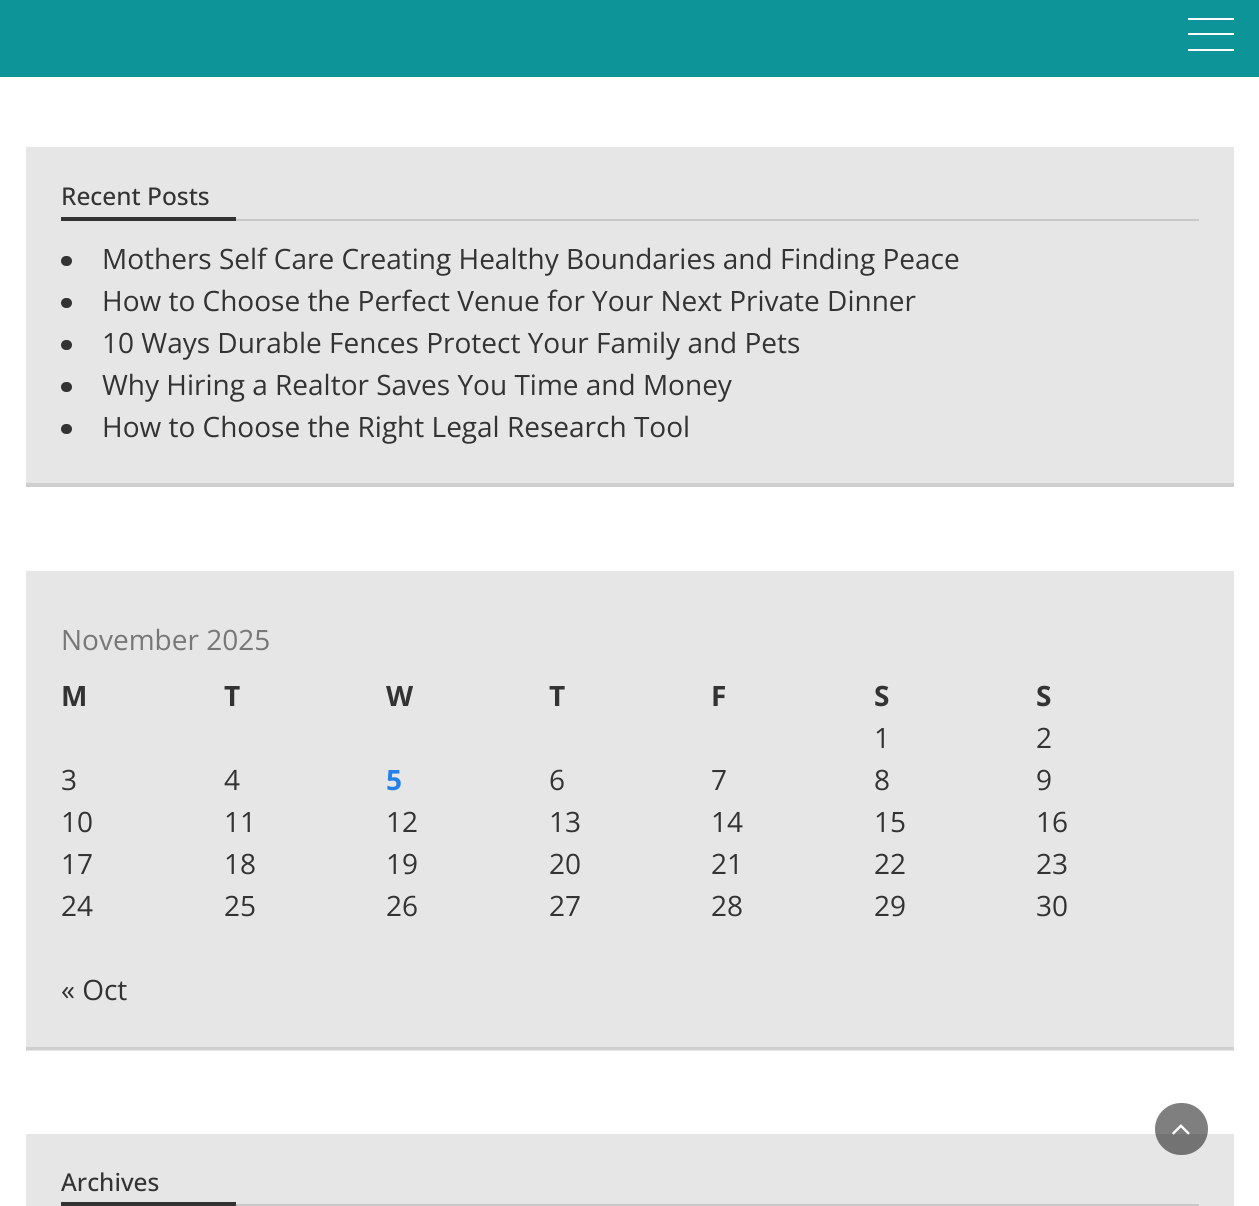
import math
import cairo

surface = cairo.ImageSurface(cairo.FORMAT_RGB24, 1259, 1206)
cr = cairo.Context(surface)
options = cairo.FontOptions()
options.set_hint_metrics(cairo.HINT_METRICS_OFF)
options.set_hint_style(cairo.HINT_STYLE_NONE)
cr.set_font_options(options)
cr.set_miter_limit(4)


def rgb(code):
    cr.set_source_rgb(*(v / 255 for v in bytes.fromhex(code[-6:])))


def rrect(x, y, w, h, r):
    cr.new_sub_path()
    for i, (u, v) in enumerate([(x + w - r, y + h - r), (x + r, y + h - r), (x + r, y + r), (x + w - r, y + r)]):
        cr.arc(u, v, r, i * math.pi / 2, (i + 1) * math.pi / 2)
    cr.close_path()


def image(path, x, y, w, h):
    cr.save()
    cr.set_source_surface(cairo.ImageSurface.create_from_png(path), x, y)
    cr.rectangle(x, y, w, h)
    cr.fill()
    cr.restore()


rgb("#ffffff")
cr.paint()
for x, y, w, h, color in [
    (26, 1050, 1208, 1, "#e6e6e6"),
    (0, 0, 1259, 77, "#0c9499"),
    (1188, 18, 46, 2, "#ffffff"),
    (1188, 33, 46, 2, "#ffffff"),
    (1188, 49, 46, 2, "#ffffff"),
    (26, 147, 1208, 336, "#e6e6e6"),
    (26, 483, 1208, 4, "#cfcfcf"),
    (236, 219, 963, 2, "#c8c8c8"),
    (61, 217, 175, 4, "#333333"),
]:
    rgb(color)
    cr.rectangle(x, y, w, h)
    cr.fill()
rrect(61, 256, 11, 10, 5)
cr.fill()
rrect(61, 298, 11, 10, 5)
cr.fill()
rrect(61, 340, 11, 10, 5)
cr.fill()
rrect(61, 382, 11, 10, 5)
cr.fill()
rrect(61, 424, 11, 10, 5)
cr.fill()
for x, y, w, h, color in [
    (26, 571, 1208, 476, "#e6e6e6"),
    (26, 1047, 1208, 3, "#cfcfcf"),
    (26, 1134, 1208, 72, "#e6e6e6"),
    (236, 1204, 963, 2, "#c8c8c8"),
    (61, 1202, 175, 4, "#333333"),
]:
    rgb(color)
    cr.rectangle(x, y, w, h)
    cr.fill()
cr.set_source_rgba(0, 0, 0, 0.5)
rrect(1155, 1103, 53, 52, 26)
cr.fill()
image("img/1.png", 1172, 1124, 18, 11)
cr.select_font_face("Open Sans Medium")
cr.set_font_size(24.5)
rgb("#333333")
cr.move_to(61, 205)
cr.show_text("Recent Posts")
cr.select_font_face("Open Sans")
cr.set_font_size(28)
for x, y, s in [
    (102, 269, "Mothers Self Care Creating Healthy Boundaries and Finding Peace"),
    (102, 311, "How to Choose the Perfect Venue for Your Next Private Dinner"),
    (102, 353, "10 Ways Durable Fences Protect Your Family and Pets"),
    (102, 395, "Why Hiring a Realtor Saves You Time and Money"),
    (102, 437, "How to Choose the Right Legal Research Tool"),
]:
    cr.move_to(x, y)
    cr.show_text(s)
rgb("#777777")
cr.move_to(61, 650)
cr.show_text("November 2025")
cr.select_font_face("Open Sans", cairo.FONT_SLANT_NORMAL, cairo.FONT_WEIGHT_BOLD)
rgb("#333333")
for x, y, s in [
    (61, 706, "M"),
    (224, 706, "T"),
    (386, 706, "W"),
    (549, 706, "T"),
    (711, 706, "F"),
    (874, 706, "S"),
    (1036, 706, "S"),
]:
    cr.move_to(x, y)
    cr.show_text(s)
cr.select_font_face("Open Sans")
for x, y, s in [
    (874, 748, "1"),
    (1036, 748, "2"),
    (61, 790, "3"),
    (224, 790, "4"),
]:
    cr.move_to(x, y)
    cr.show_text(s)
cr.select_font_face("Open Sans", cairo.FONT_SLANT_NORMAL, cairo.FONT_WEIGHT_BOLD)
rgb("#2581ea")
cr.move_to(386, 790)
cr.show_text("5")
cr.select_font_face("Open Sans")
rgb("#333333")
for x, y, s in [
    (549, 790, "6"),
    (711, 790, "7"),
    (874, 790, "8"),
    (1036, 790, "9"),
    (61, 832, "10"),
    (224, 832, "11"),
    (386, 832, "12"),
    (549, 832, "13"),
    (711, 832, "14"),
    (874, 832, "15"),
    (1036, 832, "16"),
    (61, 874, "17"),
    (224, 874, "18"),
    (386, 874, "19"),
    (549, 874, "20"),
    (711, 874, "21"),
    (874, 874, "22"),
    (1036, 874, "23"),
    (61, 916, "24"),
    (224, 916, "25"),
    (386, 916, "26"),
    (549, 916, "27"),
    (711, 916, "28"),
    (874, 916, "29"),
    (1036, 916, "30"),
    (61, 1000, "« Oct"),
]:
    cr.move_to(x, y)
    cr.show_text(s)
cr.select_font_face("Open Sans Medium")
cr.set_font_size(24.5)
cr.move_to(61, 1191)
cr.show_text("Archives")
surface.write_to_png("page.png")
